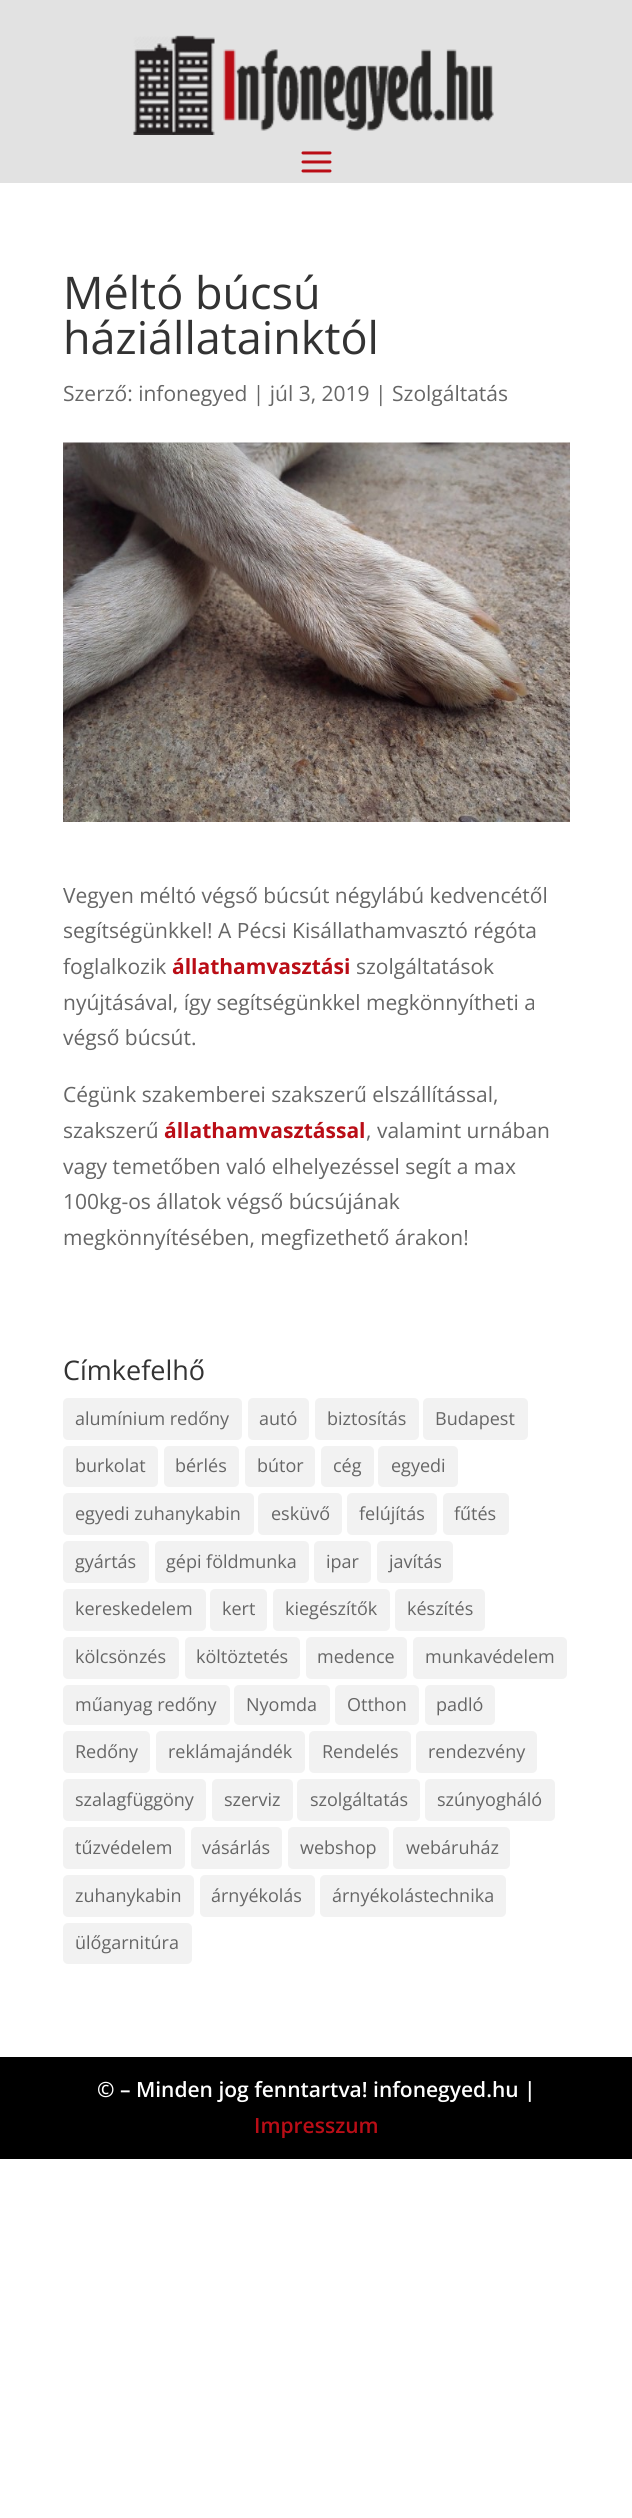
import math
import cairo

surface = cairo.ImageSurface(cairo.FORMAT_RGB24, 632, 2518)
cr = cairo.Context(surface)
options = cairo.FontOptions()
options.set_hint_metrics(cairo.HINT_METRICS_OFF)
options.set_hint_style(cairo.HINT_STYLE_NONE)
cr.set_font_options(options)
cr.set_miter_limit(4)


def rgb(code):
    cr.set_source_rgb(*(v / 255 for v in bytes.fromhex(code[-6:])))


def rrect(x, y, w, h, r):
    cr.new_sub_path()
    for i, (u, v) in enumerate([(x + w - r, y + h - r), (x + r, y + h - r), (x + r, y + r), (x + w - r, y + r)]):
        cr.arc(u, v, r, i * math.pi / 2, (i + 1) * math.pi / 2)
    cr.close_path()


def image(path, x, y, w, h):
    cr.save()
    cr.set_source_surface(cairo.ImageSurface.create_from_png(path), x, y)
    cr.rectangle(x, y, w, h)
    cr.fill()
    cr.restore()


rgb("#ffffff")
cr.paint()
rgb("#e2e2e2")
cr.rectangle(0, 0, 632, 183)
cr.fill()
image("img/1.png", 133, 35, 361, 100)
image("img/2.png", 301, 151, 31, 22)
image("img/3.png", 63, 442, 507, 380)
rgb("#f2f2f2")
rrect(63, 1398, 179, 42, 5)
cr.fill()
rrect(248, 1398, 61, 42, 5)
cr.fill()
rrect(315, 1398, 104, 42, 5)
cr.fill()
rrect(423, 1398, 105, 42, 5)
cr.fill()
rrect(63, 1446, 95, 41, 5)
cr.fill()
rrect(164, 1446, 75, 41, 5)
cr.fill()
rrect(245, 1446, 70, 41, 5)
cr.fill()
rrect(321, 1446, 53, 41, 5)
cr.fill()
rrect(378, 1446, 80, 41, 5)
cr.fill()
rrect(63, 1493, 191, 42, 5)
cr.fill()
rrect(258, 1493, 84, 42, 5)
cr.fill()
rrect(347, 1493, 90, 42, 5)
cr.fill()
rrect(443, 1493, 66, 42, 5)
cr.fill()
rrect(63, 1541, 86, 42, 5)
cr.fill()
rrect(155, 1541, 154, 42, 5)
cr.fill()
rrect(314, 1541, 57, 42, 5)
cr.fill()
rrect(377, 1541, 76, 42, 5)
cr.fill()
rrect(63, 1589, 143, 42, 5)
cr.fill()
rrect(210, 1589, 57, 42, 5)
cr.fill()
rrect(273, 1589, 117, 42, 5)
cr.fill()
rrect(395, 1589, 90, 42, 5)
cr.fill()
rrect(63, 1637, 116, 42, 5)
cr.fill()
rrect(185, 1637, 115, 42, 5)
cr.fill()
rrect(306, 1637, 101, 42, 5)
cr.fill()
rrect(413, 1637, 154, 42, 5)
cr.fill()
rrect(63, 1685, 167, 40, 5)
cr.fill()
rrect(234, 1685, 96, 40, 5)
cr.fill()
rrect(335, 1685, 84, 40, 5)
cr.fill()
rrect(425, 1685, 70, 40, 5)
cr.fill()
rrect(63, 1731, 87, 42, 5)
cr.fill()
rrect(156, 1731, 149, 42, 5)
cr.fill()
rrect(309, 1731, 102, 42, 5)
cr.fill()
rrect(416, 1731, 121, 42, 5)
cr.fill()
rrect(63, 1779, 143, 42, 5)
cr.fill()
rrect(212, 1779, 81, 42, 5)
cr.fill()
rrect(297, 1779, 123, 42, 5)
cr.fill()
rrect(425, 1779, 130, 42, 5)
cr.fill()
rrect(63, 1827, 122, 42, 5)
cr.fill()
rrect(191, 1827, 91, 42, 5)
cr.fill()
rrect(288, 1827, 101, 42, 5)
cr.fill()
rrect(393, 1827, 117, 42, 5)
cr.fill()
rrect(63, 1875, 131, 42, 5)
cr.fill()
rrect(200, 1875, 115, 42, 5)
cr.fill()
rrect(320, 1875, 186, 42, 5)
cr.fill()
rrect(63, 1923, 129, 41, 5)
cr.fill()
rgb("#000000")
cr.rectangle(0, 2057, 632, 102)
cr.fill()
cr.select_font_face("Open Sans")
cr.set_font_size(45)
rgb("#333333")
cr.move_to(63, 309)
cr.show_text("Méltó búcsú")
cr.move_to(63, 354)
cr.show_text("háziállatainktól")
cr.set_font_size(21)
rgb("#666666")
for x, y, s in [
    (63, 401, "Szerző: infonegyed | júl 3, 2019 | Szolgáltatás"),
    (63, 903, "Vegyen méltó végső búcsút négylábú kedvencétől"),
    (63, 938, "segítségünkkel! A Pécsi Kisállathamvasztó régóta"),
    (63, 974, "foglalkozik"),
]:
    cr.move_to(x, y)
    cr.show_text(s)
cr.select_font_face("Open Sans", cairo.FONT_SLANT_NORMAL, cairo.FONT_WEIGHT_BOLD)
rgb("#ba0d16")
cr.move_to(172, 974)
cr.show_text("állathamvasztási")
cr.select_font_face("Open Sans")
rgb("#666666")
for x, y, s in [
    (356, 974, "szolgáltatások"),
    (63, 1010, "nyújtásával, így segítségünkkel megkönnyítheti a"),
    (63, 1045, "végső búcsút."),
    (63, 1102, "Cégünk szakemberei szakszerű elszállítással,"),
    (63, 1138, "szakszerű"),
]:
    cr.move_to(x, y)
    cr.show_text(s)
cr.select_font_face("Open Sans", cairo.FONT_SLANT_NORMAL, cairo.FONT_WEIGHT_BOLD)
rgb("#ba0d16")
cr.move_to(164, 1138)
cr.show_text("állathamvasztással")
cr.select_font_face("Open Sans")
rgb("#666666")
for x, y, s in [
    (366, 1138, ", valamint urnában"),
    (63, 1174, "vagy temetőben való elhelyezéssel segít a max"),
    (63, 1209, "100kg-os állatok végső búcsújának"),
    (63, 1245, "megkönnyítésében, megfizethető árakon!"),
]:
    cr.move_to(x, y)
    cr.show_text(s)
cr.set_font_size(27)
rgb("#333333")
cr.move_to(63, 1380)
cr.show_text("Címkefelhő")
cr.set_font_size(18)
rgb("#666666")
for x, y, s in [
    (75, 1425, "alumínium redőny"),
    (259, 1425, "autó"),
    (327, 1425, "biztosítás"),
    (435, 1425, "Budapest"),
    (75, 1472, "burkolat"),
    (175, 1472, "bérlés"),
    (257, 1472, "bútor"),
    (333, 1472, "cég"),
    (391, 1472, "egyedi"),
    (75, 1520, "egyedi zuhanykabin"),
    (271, 1520, "esküvő"),
    (359, 1520, "felújítás"),
    (454, 1520, "fűtés"),
    (75, 1568, "gyártás"),
    (166, 1568, "gépi földmunka"),
    (326, 1568, "ipar"),
    (389, 1568, "javítás"),
    (75, 1615, "kereskedelem"),
    (222, 1615, "kert"),
    (285, 1615, "kiegészítők"),
    (407, 1615, "készítés"),
    (75, 1663, "kölcsönzés"),
    (196, 1663, "költöztetés"),
    (317, 1663, "medence"),
    (425, 1663, "munkavédelem"),
    (75, 1711, "műanyag redőny"),
    (246, 1711, "Nyomda"),
    (347, 1711, "Otthon"),
    (436, 1711, "padló"),
    (75, 1758, "Redőny"),
    (168, 1758, "reklámajándék"),
    (322, 1758, "Rendelés"),
    (428, 1758, "rendezvény"),
    (75, 1806, "szalagfüggöny"),
    (224, 1806, "szerviz"),
    (310, 1806, "szolgáltatás"),
    (437, 1806, "szúnyogháló"),
    (75, 1854, "tűzvédelem"),
    (202, 1854, "vásárlás"),
    (300, 1854, "webshop"),
    (406, 1854, "webáruház"),
    (75, 1902, "zuhanykabin"),
    (211, 1902, "árnyékolás"),
    (332, 1902, "árnyékolástechnika"),
    (75, 1949, "ülőgarnitúra"),
]:
    cr.move_to(x, y)
    cr.show_text(s)
cr.select_font_face("Open Sans SemiBold")
cr.set_font_size(21)
rgb("#ffffff")
cr.move_to(97, 2097)
cr.show_text("© – Minden jog fenntartva! infonegyed.hu |")
rgb("#ba0d16")
cr.move_to(254, 2133)
cr.show_text("Impresszum")
surface.write_to_png("page.png")
